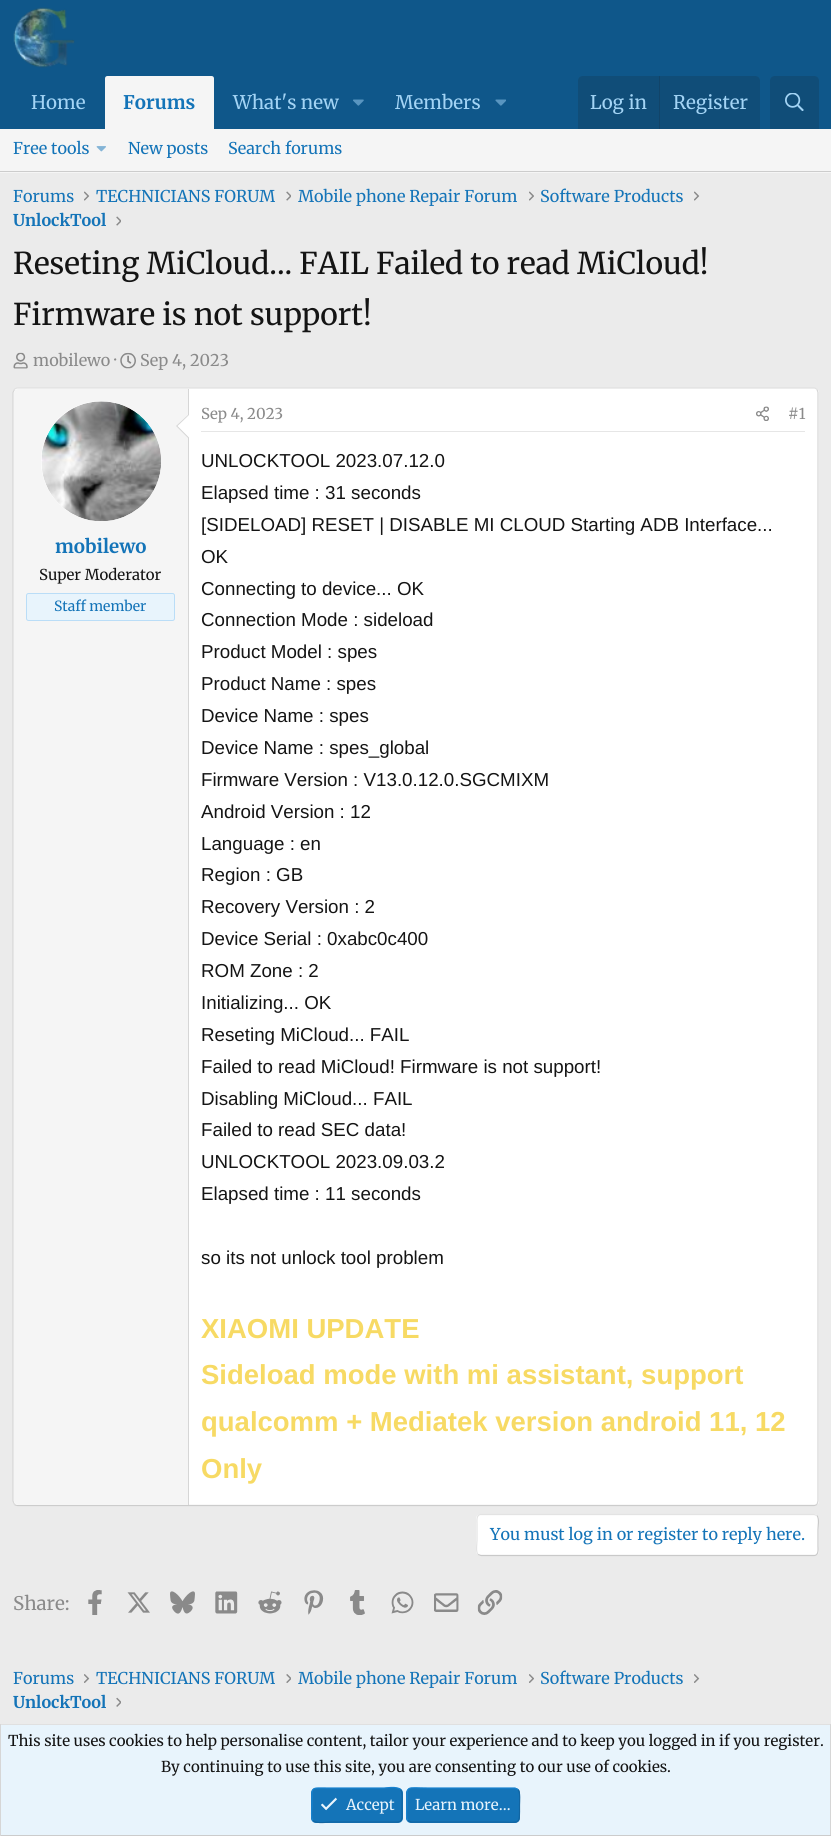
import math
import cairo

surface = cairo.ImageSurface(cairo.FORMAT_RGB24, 831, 1836)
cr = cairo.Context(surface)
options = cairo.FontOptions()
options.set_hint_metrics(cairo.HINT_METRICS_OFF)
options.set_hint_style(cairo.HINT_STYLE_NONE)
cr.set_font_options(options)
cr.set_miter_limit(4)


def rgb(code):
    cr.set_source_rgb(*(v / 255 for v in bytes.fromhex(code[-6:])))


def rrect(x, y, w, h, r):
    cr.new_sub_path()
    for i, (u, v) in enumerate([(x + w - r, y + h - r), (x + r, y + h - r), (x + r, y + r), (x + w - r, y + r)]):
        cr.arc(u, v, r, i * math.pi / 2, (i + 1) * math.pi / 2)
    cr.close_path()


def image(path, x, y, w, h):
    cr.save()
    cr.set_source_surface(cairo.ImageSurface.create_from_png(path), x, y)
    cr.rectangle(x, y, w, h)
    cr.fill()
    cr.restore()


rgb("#ebebeb")
cr.paint()
rgb("#0f578a")
cr.rectangle(0, 0, 831, 129)
cr.fill()
image("img/1.png", 13, 7, 62, 61)
rgb("#f5f5f5")
cr.new_path()
cr.move_to(107.5, 76)
cr.line_to(211.5, 76)
cr.curve_to(213, 76, 214, 77, 214, 78.5)
cr.line_to(214, 129)
cr.line_to(105, 129)
cr.line_to(105, 78.5)
cr.curve_to(105, 77, 106, 76, 107.5, 76)
cr.close_path()
cr.fill()
image("img/2.png", 353, 99, 11, 7)
image("img/3.png", 495, 99, 11, 7)
rgb("#104d78")
cr.new_path()
cr.move_to(583, 76)
cr.line_to(755, 76)
cr.curve_to(758, 76, 760, 78, 760, 81)
cr.line_to(760, 129)
cr.line_to(578, 129)
cr.line_to(578, 81)
cr.curve_to(578, 78, 580, 76, 583, 76)
cr.close_path()
cr.fill()
rgb("#114469")
cr.rectangle(659, 76, 1, 53)
cr.fill()
rgb("#104d78")
cr.new_path()
cr.move_to(775, 76)
cr.line_to(814, 76)
cr.curve_to(817, 76, 819, 78, 819, 81)
cr.line_to(819, 129)
cr.line_to(770, 129)
cr.line_to(770, 81)
cr.curve_to(770, 78, 772, 76, 775, 76)
cr.close_path()
cr.fill()
image("img/4.png", 785, 93, 19, 18)
rgb("#f5f5f5")
cr.rectangle(0, 129, 831, 44)
cr.fill()
rgb("#cccccc")
cr.rectangle(0, 171, 831, 1)
cr.fill()
image("img/5.png", 96, 146, 10, 6)
image("img/6.png", 84, 191, 6, 10)
image("img/7.png", 286, 191, 5, 10)
image("img/8.png", 529, 191, 5, 10)
image("img/6.png", 694, 191, 6, 10)
image("img/7.png", 116, 216, 5, 10)
image("img/9.png", 13, 352, 15, 17)
image("img/10.png", 120, 352, 16, 17)
rgb("#ffffff")
rrect(13, 388, 806, 1118, 5)
cr.fill()
cr.new_path()
cr.move_to(14.5, 389.5)
cr.curve_to(15, 388.5, 16.5, 388, 17.5, 388)
cr.line_to(814, 388)
cr.curve_to(815, 388, 816, 388.5, 817, 389.5)
rgb("#e0e0e0")
cr.set_line_width(1.2)
cr.stroke()
cr.new_path()
cr.move_to(817, 389.5)
cr.line_to(818, 392.5)
cr.line_to(818, 1501)
cr.line_to(817, 1504.5)
rgb("#d6d6d6")
cr.stroke()
cr.new_path()
cr.move_to(817, 1504.5)
cr.curve_to(816, 1505, 815, 1505.5, 814, 1505.5)
cr.line_to(17.5, 1505.5)
cr.curve_to(16.5, 1505.5, 15, 1505, 14.5, 1504.5)
rgb("#cccccc")
cr.stroke()
cr.new_path()
cr.move_to(14.5, 1504.5)
cr.line_to(13, 1501)
cr.line_to(13, 392.5)
cr.line_to(14.5, 389.5)
rgb("#d6d6d6")
cr.stroke()
rgb("#f5f5f5")
cr.new_path()
cr.move_to(18, 389)
cr.line_to(189, 389)
cr.line_to(189, 1505)
cr.line_to(18, 1505)
cr.curve_to(16, 1505, 14, 1503, 14, 1501)
cr.line_to(14, 393)
cr.curve_to(14, 391, 16, 389, 18, 389)
cr.close_path()
cr.fill()
rgb("#d6d6d6")
cr.rectangle(188, 389, 1, 1116)
cr.fill()
rgb("#ffffff")
cr.arc(101, 461, 60, 0, 2 * math.pi)
cr.fill()
image("img/11.png", 41, 401, 120, 120)
rgb("#d6d6d6")
cr.new_path()
cr.move_to(189, 414)
cr.line_to(189, 439)
cr.line_to(176, 426)
cr.close_path()
cr.fill()
rgb("#ffffff")
cr.new_path()
cr.move_to(189, 415)
cr.line_to(189, 437.5)
cr.line_to(177.5, 426)
cr.close_path()
cr.fill()
rgb("#e8f4fc")
rrect(26.5, 593.5, 148, 27, 2)
cr.fill_preserve()
rgb("#baddf7")
cr.set_line_width(1)
cr.stroke()
rgb("#e6e6e6")
cr.rectangle(201, 431, 604, 1)
cr.fill()
image("img/12.png", 756, 406, 13, 15)
rgb("#ffffff")
rrect(476, 1514, 343, 42, 5)
cr.fill()
cr.new_path()
cr.move_to(817, 1515.5)
cr.curve_to(819.5, 1518.5, 818, 1526.5, 818, 1529.5)
cr.line_to(818, 1546)
cr.curve_to(818, 1549, 819, 1555.5, 814, 1555.5)
cr.line_to(481, 1555.5)
cr.line_to(478, 1554.5)
rgb("#c9c9c9")
cr.set_line_width(1.2)
cr.stroke()
cr.new_path()
cr.move_to(478, 1554.5)
cr.curve_to(475.5, 1551.5, 477, 1543.5, 477, 1540.5)
cr.line_to(477, 1524)
cr.curve_to(477, 1521, 476, 1514.5, 481, 1514.5)
cr.line_to(814, 1514.5)
cr.line_to(817, 1515.5)
rgb("#e3e3e3")
cr.stroke()
image("img/13.png", 88, 1590, 14, 25)
image("img/14.png", 127, 1592, 23, 21)
image("img/15.png", 170, 1591, 25, 23)
image("img/16.png", 215, 1591, 23, 23)
image("img/17.png", 258, 1591, 24, 23)
image("img/18.png", 304, 1590, 20, 25)
image("img/19.png", 350, 1590, 15, 25)
image("img/20.png", 391, 1591, 23, 23)
image("img/21.png", 434, 1593, 25, 19)
image("img/22.png", 477, 1590, 26, 25)
image("img/23.png", 84, 1674, 6, 9)
image("img/24.png", 286, 1674, 5, 9)
image("img/25.png", 529, 1674, 5, 9)
image("img/23.png", 694, 1674, 6, 9)
image("img/26.png", 116, 1697, 5, 10)
for x, y, w, h, color in [
    (1, 1725, 829, 110, "#e8f4fc"),
    (0, 1724, 831, 1, "#e0e0e0"),
    (830, 1724, 1, 112, "#d6d6d6"),
    (0, 1835, 831, 1, "#cccccc"),
    (0, 1724, 1, 112, "#d6d6d6"),
]:
    rgb(color)
    cr.rectangle(x, y, w, h)
    cr.fill()
rgb("#1474b8")
rrect(311, 1788, 92, 35, 5)
cr.fill()
cr.new_path()
cr.move_to(400.5, 1789.5)
cr.curve_to(403, 1792, 402, 1802, 402, 1805)
cr.curve_to(402, 1824.5, 404.5, 1822, 384, 1822)
cr.line_to(330, 1822)
cr.curve_to(329, 1822, 316.5, 1824, 313, 1820.5)
rgb("#1265a1")
cr.stroke()
cr.new_path()
cr.move_to(313, 1820.5)
cr.curve_to(310.5, 1818, 312, 1808, 312, 1805)
cr.curve_to(312, 1785.5, 309.5, 1788, 330, 1788)
cr.line_to(384, 1788)
cr.curve_to(385, 1788, 397.5, 1786, 400.5, 1789.5)
rgb("#1782cf")
cr.stroke()
image("img/27.png", 321, 1797, 16, 14)
rgb("#1474b8")
rrect(406, 1788, 114, 35, 5)
cr.fill()
cr.new_path()
cr.move_to(518, 1789.5)
cr.curve_to(520.5, 1792, 519.5, 1802, 519.5, 1805)
cr.curve_to(519.5, 1826, 521, 1822, 497.5, 1822)
cr.line_to(411, 1822)
cr.line_to(408, 1820.5)
rgb("#1265a1")
cr.stroke()
cr.new_path()
cr.move_to(408, 1820.5)
cr.curve_to(405.5, 1818, 407, 1808, 407, 1805)
cr.curve_to(407, 1784, 405, 1788, 428.5, 1788)
cr.line_to(515, 1788)
cr.line_to(518, 1789.5)
rgb("#1782cf")
cr.stroke()
cr.select_font_face("Merriweather Light")
cr.set_font_size(18.75)
rgb("#a3d4f5")
cr.move_to(31, 109)
cr.show_text("Home")
cr.select_font_face("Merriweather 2 Light")
rgb("#1474b8")
cr.move_to(123, 109)
cr.show_text("Forums")
cr.select_font_face("Merriweather Light")
rgb("#a3d4f5")
for x, y, s in [
    (233, 109, "What's new"),
    (395, 109, "Members"),
    (590, 109, "Log in"),
    (673, 109, "Register"),
]:
    cr.move_to(x, y)
    cr.show_text(s)
cr.set_font_size(16.25)
rgb("#1474b8")
for x, y, s in [
    (13, 154, "Free tools"),
    (128, 154, "New posts"),
    (228, 154, "Search forums"),
    (13, 202, "Forums"),
    (96, 202, "TECHNICIANS FORUM"),
    (298, 202, "Mobile phone Repair Forum"),
    (540, 202, "Software Products"),
]:
    cr.move_to(x, y)
    cr.show_text(s)
cr.select_font_face("Merriweather 2 Light")
cr.move_to(13, 226)
cr.show_text("UnlockTool")
cr.select_font_face("Merriweather Light")
cr.set_font_size(30)
rgb("#141414")
cr.move_to(13, 274)
cr.show_text("Reseting MiCloud... FAIL Failed to read MiCloud!")
cr.move_to(13, 325)
cr.show_text("Firmware is not support!")
cr.set_font_size(16.25)
rgb("#8a8a8a")
cr.move_to(33, 366)
cr.show_text("mobilewo ·")
cr.move_to(140, 366)
cr.show_text("Sep 4, 2023")
cr.select_font_face("Merriweather 2 Light")
cr.set_font_size(18.75)
rgb("#1474b8")
cr.move_to(55, 553)
cr.show_text("mobilewo")
cr.select_font_face("Merriweather Light")
cr.set_font_size(15)
rgb("#141414")
cr.move_to(39, 580)
cr.show_text("Super Moderator")
cr.set_font_size(14)
rgb("#1474b8")
cr.move_to(54, 611)
cr.show_text("Staff member")
cr.set_font_size(15)
rgb("#8a8a8a")
cr.move_to(201, 419)
cr.show_text("Sep 4, 2023")
cr.move_to(788, 419)
cr.show_text("#1")
cr.select_font_face("Liberation Sans")
cr.set_font_size(18.75)
rgb("#141414")
for x, y, s in [
    (201, 467, "UNLOCKTOOL 2023.07.12.0"),
    (201, 499, "Elapsed time : 31 seconds"),
    (201, 531, "[SIDELOAD] RESET | DISABLE MI CLOUD Starting ADB Interface..."),
    (201, 563, "OK"),
    (201, 595, "Connecting to device... OK"),
    (201, 626, "Connection Mode : sideload"),
    (201, 658, "Product Model : spes"),
    (201, 690, "Product Name : spes"),
    (201, 722, "Device Name : spes"),
    (201, 754, "Device Name : spes_global"),
    (201, 786, "Firmware Version : V13.0.12.0.SGCMIXM"),
    (201, 818, "Android Version : 12"),
    (201, 850, "Language : en"),
    (201, 881, "Region : GB"),
    (201, 913, "Recovery Version : 2"),
    (201, 945, "Device Serial : 0xabc0c400"),
    (201, 977, "ROM Zone : 2"),
    (201, 1009, "Initializing... OK"),
    (201, 1041, "Reseting MiCloud... FAIL"),
    (201, 1073, "Failed to read MiCloud! Firmware is not support!"),
    (201, 1105, "Disabling MiCloud... FAIL"),
    (201, 1136, "Failed to read SEC data!"),
    (201, 1168, "UNLOCKTOOL 2023.09.03.2"),
    (201, 1200, "Elapsed time : 11 seconds"),
    (201, 1264, "so its not unlock tool problem"),
]:
    cr.move_to(x, y)
    cr.show_text(s)
cr.select_font_face("Liberation Sans", cairo.FONT_SLANT_NORMAL, cairo.FONT_WEIGHT_BOLD)
cr.set_font_size(27.5)
rgb("#f7da64")
for x, y, s in [
    (201, 1338, "XIAOMI UPDATE"),
    (201, 1384, "Sideload mode with mi assistant, support"),
    (201, 1431, "qualcomm + Mediatek version android 11, 12"),
    (201, 1478, "Only"),
]:
    cr.move_to(x, y)
    cr.show_text(s)
cr.select_font_face("Merriweather Light")
cr.set_font_size(16.25)
rgb("#1474b8")
cr.move_to(490, 1540)
cr.show_text("You must log in or register to reply here.")
cr.set_font_size(18.75)
rgb("#8a8a8a")
cr.move_to(13, 1610)
cr.show_text("Share:")
cr.set_font_size(16.25)
rgb("#1474b8")
for x, y, s in [
    (13, 1684, "Forums"),
    (96, 1684, "TECHNICIANS FORUM"),
    (298, 1684, "Mobile phone Repair Forum"),
    (540, 1684, "Software Products"),
]:
    cr.move_to(x, y)
    cr.show_text(s)
cr.select_font_face("Merriweather 2 Light")
cr.move_to(13, 1708)
cr.show_text("UnlockTool")
cr.select_font_face("Merriweather Light")
cr.set_font_size(15)
rgb("#141414")
cr.move_to(8, 1746)
cr.show_text("This site uses cookies to help personalise content, tailor your experience and to keep you logged in if you register.")
cr.move_to(161, 1772)
cr.show_text("By continuing to use this site, you are consenting to our use of cookies.")
rgb("#e8f4fc")
cr.move_to(346, 1810)
cr.show_text("Accept")
cr.move_to(415, 1810)
cr.show_text("Learn more…")
surface.write_to_png("page.png")
